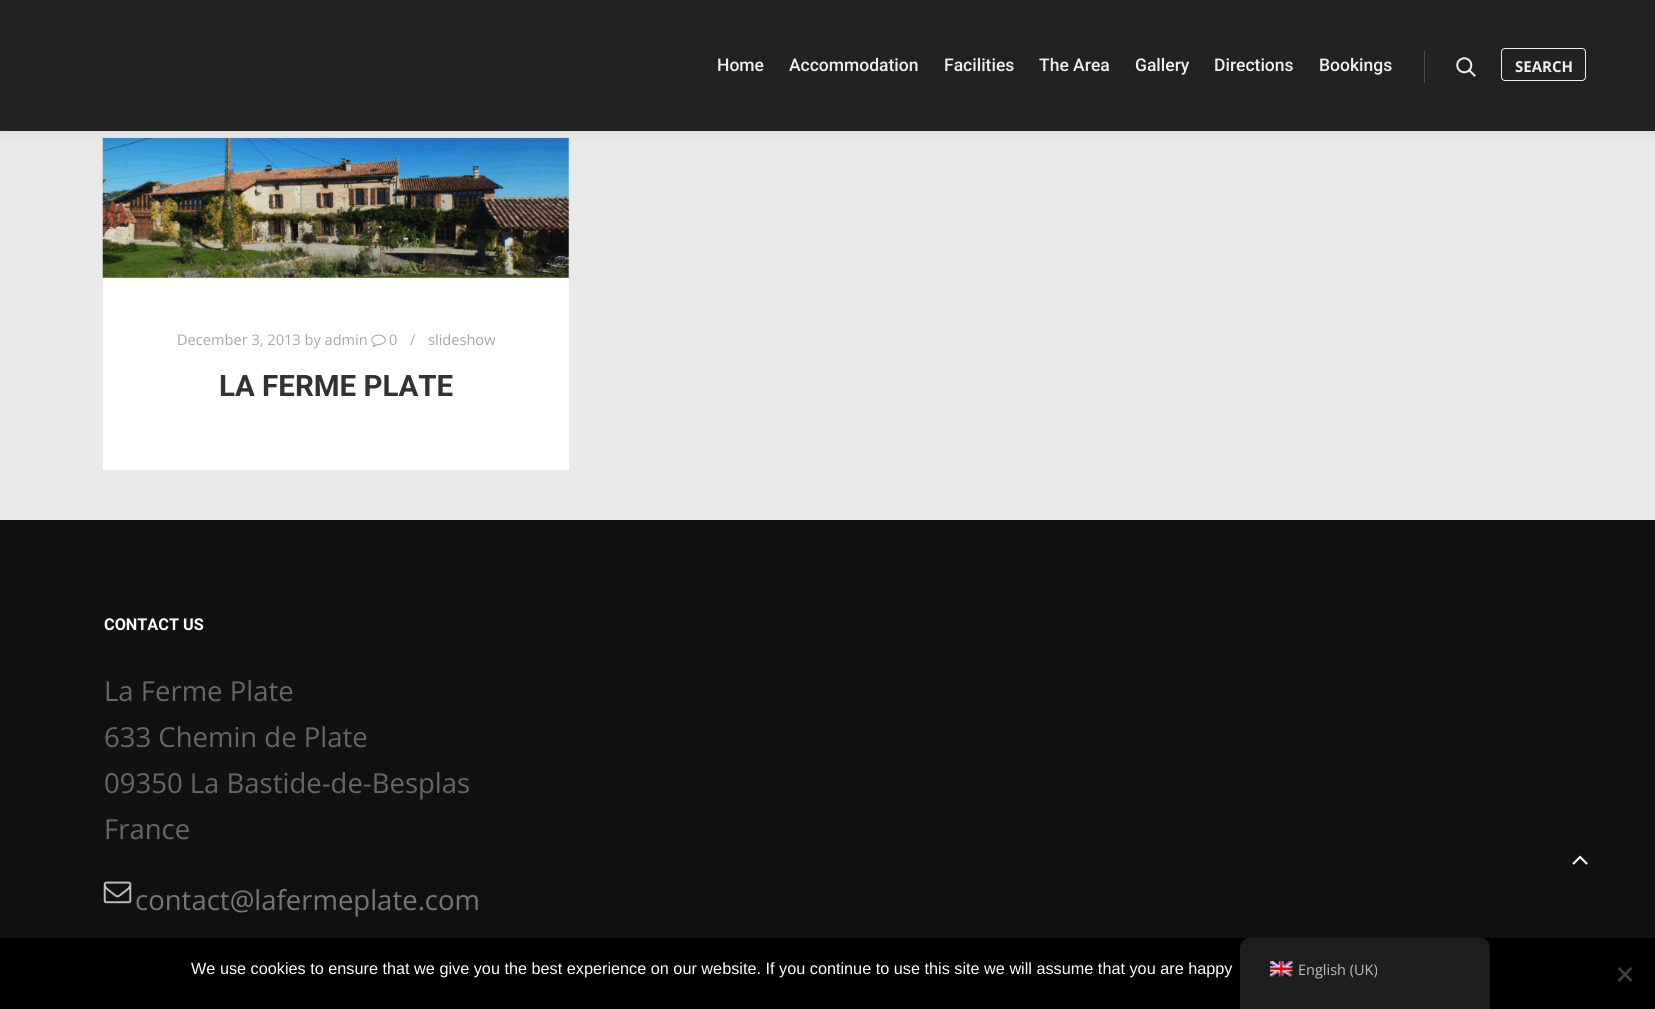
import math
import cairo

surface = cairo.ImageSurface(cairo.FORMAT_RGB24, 1655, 1009)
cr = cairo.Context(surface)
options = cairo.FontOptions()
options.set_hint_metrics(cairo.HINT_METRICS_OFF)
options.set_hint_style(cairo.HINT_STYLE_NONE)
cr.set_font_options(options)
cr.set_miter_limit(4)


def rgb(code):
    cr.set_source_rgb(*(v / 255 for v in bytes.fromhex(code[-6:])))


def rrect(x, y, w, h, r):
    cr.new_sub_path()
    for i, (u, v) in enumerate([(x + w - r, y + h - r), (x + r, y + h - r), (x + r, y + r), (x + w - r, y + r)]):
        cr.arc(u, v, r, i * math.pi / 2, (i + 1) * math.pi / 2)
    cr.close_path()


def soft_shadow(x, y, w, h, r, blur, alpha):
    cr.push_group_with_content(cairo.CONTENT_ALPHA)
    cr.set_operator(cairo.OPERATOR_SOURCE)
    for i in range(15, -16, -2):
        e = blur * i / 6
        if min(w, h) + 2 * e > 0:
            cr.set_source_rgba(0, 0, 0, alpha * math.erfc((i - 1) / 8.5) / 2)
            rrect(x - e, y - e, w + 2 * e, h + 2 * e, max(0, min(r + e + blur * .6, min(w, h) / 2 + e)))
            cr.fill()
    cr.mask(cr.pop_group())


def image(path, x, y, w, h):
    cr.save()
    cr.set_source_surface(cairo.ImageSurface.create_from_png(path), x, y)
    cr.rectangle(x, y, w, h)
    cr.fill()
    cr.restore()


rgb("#e9e9e9")
cr.paint()
image("img/2.png", 102, 137, 467, 141)
rgb("#000000")
soft_shadow(0, 0, 1655, 131, 0, 7.5, 0.09)
rgb("#222222")
cr.rectangle(0, 0, 1655, 131)
cr.fill()
rgb("#4b4b4b")
cr.rectangle(1424, 51, 1, 32)
cr.fill()
image("img/1.png", 1456, 57, 20, 20)
rrect(1501.5, 48.5, 84, 32, 3.5)
rgb("#f0f0f0")
cr.set_line_width(1)
cr.stroke()
rgb("#ffffff")
cr.rectangle(103, 278, 466, 192)
cr.fill()
image("img/3.png", 371, 334, 15, 13)
rgb("#111111")
cr.rectangle(0, 520, 1655, 418)
cr.fill()
image("img/4.png", 103, 881, 29, 23)
image("img/5.png", 1572, 855, 16, 10)
rgb("#000000")
cr.rectangle(0, 938, 1655, 71)
cr.fill()
rgb("#404040")
cr.new_path()
cr.move_to(1630.5, 967)
cr.line_to(1632.5, 968.5)
cr.line_to(1619.5, 982)
cr.line_to(1617.5, 980)
cr.close_path()
cr.fill()
cr.new_path()
cr.move_to(1617.5, 968.5)
cr.line_to(1619.5, 967)
cr.line_to(1632.5, 980)
cr.line_to(1630.5, 982)
cr.close_path()
cr.fill()
rgb("#1e1e1e")
cr.new_path()
cr.move_to(1250, 938)
cr.line_to(1480, 938)
cr.curve_to(1485.5, 938, 1490, 942.5, 1490, 948)
cr.line_to(1490, 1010)
cr.line_to(1240, 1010)
cr.line_to(1240, 948)
cr.curve_to(1240, 942.5, 1244.5, 938, 1250, 938)
cr.close_path()
cr.fill()
image("img/6.png", 1269, 961, 24, 16)
cr.select_font_face("Roboto Medium")
cr.set_font_size(17.5)
rgb("#f0f0f0")
for x, y, s in [
    (717, 71, "Home"),
    (789, 71, "Accommodation"),
    (944, 71, "Facilities"),
    (1039, 71, "The Area"),
    (1135, 71, "Gallery"),
    (1214, 71, "Directions"),
    (1319, 71, "Bookings"),
]:
    cr.move_to(x, y)
    cr.show_text(s)
cr.select_font_face("Open Sans", cairo.FONT_SLANT_NORMAL, cairo.FONT_WEIGHT_BOLD)
cr.set_font_size(15)
cr.move_to(1515, 72)
cr.show_text("SEARCH")
cr.select_font_face("Open Sans")
cr.set_font_size(14.6)
rgb("#a7a7a7")
for x, y, s in [
    (177, 345, "December 3, 2013 by admin"),
    (389, 345, "0"),
    (410, 345, "/"),
    (428, 345, "slideshow"),
]:
    cr.move_to(x, y)
    cr.show_text(s)
cr.select_font_face("Roboto", cairo.FONT_SLANT_NORMAL, cairo.FONT_WEIGHT_BOLD)
cr.set_font_size(29.5)
rgb("#323232")
cr.move_to(219, 396)
cr.show_text("LA FERME PLATE")
cr.set_font_size(16.25)
rgb("#ffffff")
cr.move_to(104, 630)
cr.show_text("CONTACT US")
cr.select_font_face("Open Sans")
cr.set_font_size(27.5)
rgb("#666666")
for x, y, s in [
    (104, 701, "La Ferme Plate"),
    (104, 747, "633 Chemin de Plate"),
    (104, 793, "09350 La Bastide-de-Besplas"),
    (104, 839, "France"),
]:
    cr.move_to(x, y)
    cr.show_text(s)
rgb("#777777")
cr.move_to(135, 910)
cr.show_text("contact@lafermeplate.com")
cr.select_font_face("Liberation Sans")
cr.set_font_size(16.25)
rgb("#ffffff")
cr.move_to(191, 974)
cr.show_text("We use cookies to ensure that we give you the best experience on our website. If you continue to use this site we will assume that you are happy")
cr.select_font_face("Open Sans")
cr.set_font_size(14.5)
rgb("#bdbdbd")
cr.move_to(1298, 975)
cr.show_text("English (UK)")
surface.write_to_png("page.png")
